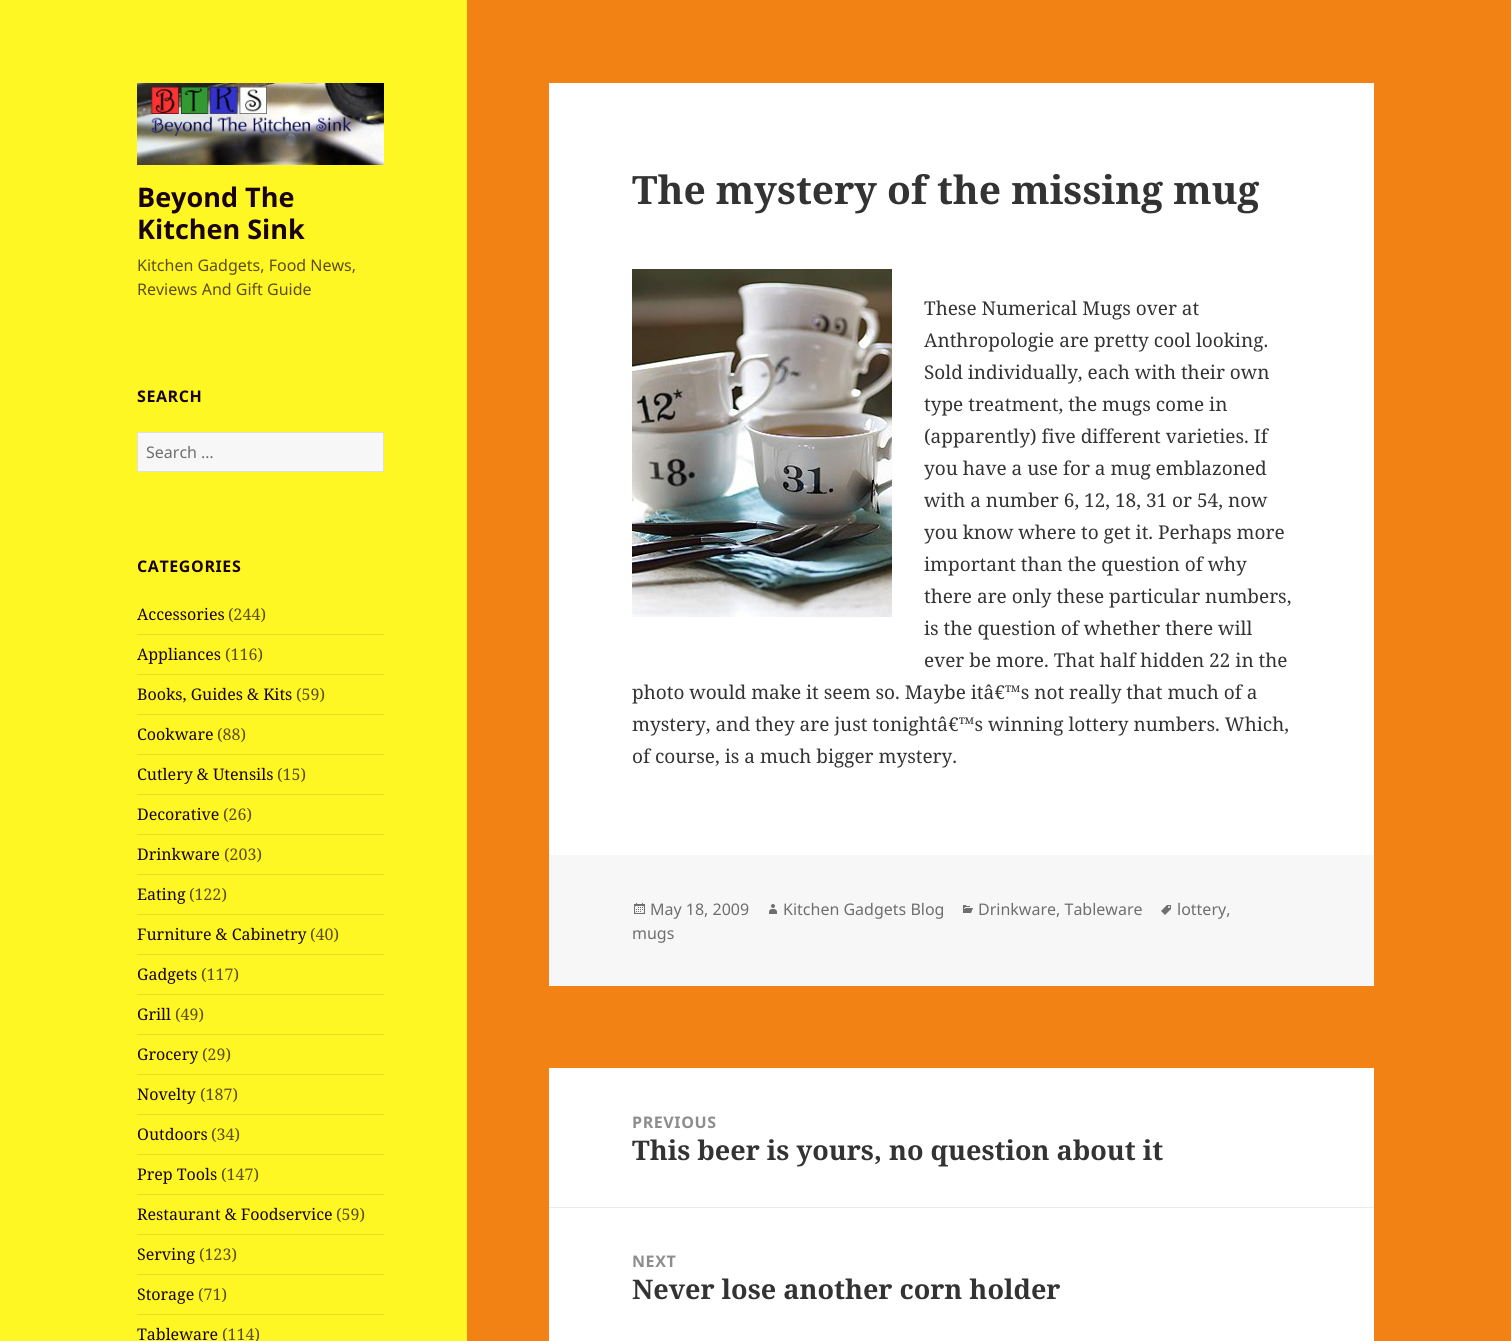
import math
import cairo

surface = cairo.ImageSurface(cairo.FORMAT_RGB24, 1511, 1341)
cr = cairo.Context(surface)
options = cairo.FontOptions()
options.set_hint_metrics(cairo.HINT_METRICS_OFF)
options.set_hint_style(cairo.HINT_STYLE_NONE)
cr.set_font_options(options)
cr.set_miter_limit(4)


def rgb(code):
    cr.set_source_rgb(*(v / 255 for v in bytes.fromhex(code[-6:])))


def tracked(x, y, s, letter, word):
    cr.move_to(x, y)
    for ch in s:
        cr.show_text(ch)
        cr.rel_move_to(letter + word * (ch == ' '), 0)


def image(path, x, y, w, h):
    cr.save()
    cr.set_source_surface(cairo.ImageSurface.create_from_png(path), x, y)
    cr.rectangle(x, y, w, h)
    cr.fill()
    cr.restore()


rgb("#f28213")
cr.paint()
rgb("#fff723")
cr.rectangle(0, 0, 467, 1341)
cr.fill()
image("img/1.png", 137, 83, 247, 82)
rgb("#f7f7f7")
cr.rectangle(137.5, 432.5, 246, 39)
cr.fill_preserve()
rgb("#e1dee0")
cr.set_line_width(1)
cr.stroke()
for x, y, w, h, color in [
    (137, 634, 247, 1, "#e8de21"),
    (137, 674, 247, 1, "#e8de21"),
    (137, 714, 247, 1, "#e8de21"),
    (137, 754, 247, 1, "#e8de21"),
    (137, 794, 247, 1, "#e8de21"),
    (137, 834, 247, 1, "#e8de21"),
    (137, 874, 247, 1, "#e8de21"),
    (137, 914, 247, 1, "#e8de21"),
    (137, 954, 247, 1, "#e8de21"),
    (137, 994, 247, 1, "#e8de21"),
    (137, 1034, 247, 1, "#e8de21"),
    (137, 1074, 247, 1, "#e8de21"),
    (137, 1114, 247, 1, "#e8de21"),
    (137, 1154, 247, 1, "#e8de21"),
    (137, 1194, 247, 1, "#e8de21"),
    (137, 1234, 247, 1, "#e8de21"),
    (137, 1274, 247, 1, "#e8de21"),
    (137, 1314, 247, 1, "#e8de21"),
    (549, 83, 825, 772, "#ffffff"),
]:
    rgb(color)
    cr.rectangle(x, y, w, h)
    cr.fill()
image("img/2.png", 632, 269, 260, 348)
rgb("#f7f7f7")
cr.rectangle(549, 855, 825, 131)
cr.fill()
image("img/3.png", 1161, 905, 10, 10)
image("img/4.png", 634, 903, 11, 11)
image("img/5.png", 769, 904, 8, 10)
image("img/6.png", 963, 905, 10, 8)
rgb("#ffffff")
cr.rectangle(549, 1068, 825, 273)
cr.fill()
rgb("#ebebeb")
cr.rectangle(549, 1207, 825, 1)
cr.fill()
cr.select_font_face("Noto Sans", cairo.FONT_SLANT_NORMAL, cairo.FONT_WEIGHT_BOLD)
cr.set_font_size(27)
rgb("#19020f")
cr.move_to(137, 207)
cr.show_text("Beyond The")
cr.move_to(137, 239)
cr.show_text("Kitchen Sink")
cr.select_font_face("Noto Sans")
cr.set_font_size(16)
rgb("#5e4c15")
cr.move_to(137, 271)
cr.show_text("Kitchen Gadgets, Food News,")
cr.move_to(137, 295)
cr.show_text("Reviews And Gift Guide")
cr.select_font_face("Noto Sans", cairo.FONT_SLANT_NORMAL, cairo.FONT_WEIGHT_BOLD)
rgb("#19020f")
tracked(137, 402, "SEARCH", 0.6, 0)
cr.select_font_face("Noto Sans")
rgb("#6e6e6e")
cr.move_to(146, 458)
cr.show_text("Search …")
cr.select_font_face("Noto Sans", cairo.FONT_SLANT_NORMAL, cairo.FONT_WEIGHT_BOLD)
rgb("#19020f")
tracked(137, 572, "CATEGORIES", 0.6, 0)
cr.select_font_face("Noto Serif")
cr.move_to(137, 620)
cr.show_text("Accessories")
rgb("#5e4c15")
cr.move_to(228, 620)
cr.show_text("(244)")
rgb("#19020f")
cr.move_to(137, 660)
cr.show_text("Appliances")
rgb("#5e4c15")
cr.move_to(225, 660)
cr.show_text("(116)")
rgb("#19020f")
cr.move_to(137, 700)
cr.show_text("Books, Guides & Kits")
rgb("#5e4c15")
cr.move_to(296, 700)
cr.show_text("(59)")
rgb("#19020f")
cr.move_to(137, 740)
cr.show_text("Cookware")
rgb("#5e4c15")
cr.move_to(217, 740)
cr.show_text("(88)")
rgb("#19020f")
cr.move_to(137, 780)
cr.show_text("Cutlery & Utensils")
rgb("#5e4c15")
cr.move_to(277, 780)
cr.show_text("(15)")
rgb("#19020f")
cr.move_to(137, 820)
cr.show_text("Decorative")
rgb("#5e4c15")
cr.move_to(223, 820)
cr.show_text("(26)")
rgb("#19020f")
cr.move_to(137, 860)
cr.show_text("Drinkware")
rgb("#5e4c15")
cr.move_to(224, 860)
cr.show_text("(203)")
rgb("#19020f")
cr.move_to(137, 900)
cr.show_text("Eating")
rgb("#5e4c15")
cr.move_to(189, 900)
cr.show_text("(122)")
rgb("#19020f")
cr.move_to(137, 940)
cr.show_text("Furniture & Cabinetry")
rgb("#5e4c15")
cr.move_to(310, 940)
cr.show_text("(40)")
rgb("#19020f")
cr.move_to(137, 980)
cr.show_text("Gadgets")
rgb("#5e4c15")
cr.move_to(201, 980)
cr.show_text("(117)")
rgb("#19020f")
cr.move_to(137, 1020)
cr.show_text("Grill")
rgb("#5e4c15")
cr.move_to(175, 1020)
cr.show_text("(49)")
rgb("#19020f")
cr.move_to(137, 1060)
cr.show_text("Grocery")
rgb("#5e4c15")
cr.move_to(202, 1060)
cr.show_text("(29)")
rgb("#19020f")
cr.move_to(137, 1100)
cr.show_text("Novelty")
rgb("#5e4c15")
cr.move_to(200, 1100)
cr.show_text("(187)")
rgb("#19020f")
cr.move_to(137, 1140)
cr.show_text("Outdoors")
rgb("#5e4c15")
cr.move_to(211, 1140)
cr.show_text("(34)")
rgb("#19020f")
cr.move_to(137, 1180)
cr.show_text("Prep Tools")
rgb("#5e4c15")
cr.move_to(221, 1180)
cr.show_text("(147)")
rgb("#19020f")
cr.move_to(137, 1220)
cr.show_text("Restaurant & Foodservice")
rgb("#5e4c15")
cr.move_to(336, 1220)
cr.show_text("(59)")
rgb("#19020f")
cr.move_to(137, 1260)
cr.show_text("Serving")
rgb("#5e4c15")
cr.move_to(199, 1260)
cr.show_text("(123)")
rgb("#19020f")
cr.move_to(137, 1300)
cr.show_text("Storage")
rgb("#5e4c15")
cr.move_to(198, 1300)
cr.show_text("(71)")
rgb("#19020f")
cr.move_to(137, 1340)
cr.show_text("Tableware")
rgb("#5e4c15")
cr.move_to(222, 1340)
cr.show_text("(114)")
cr.select_font_face("Noto Serif", cairo.FONT_SLANT_NORMAL, cairo.FONT_WEIGHT_BOLD)
cr.set_font_size(39)
rgb("#333333")
cr.move_to(632, 204)
cr.show_text("The mystery of the missing mug")
cr.select_font_face("Noto Serif")
cr.set_font_size(19)
for x, y, s in [
    (924, 315, "These Numerical Mugs over at"),
    (924, 347, "Anthropologie are pretty cool looking."),
    (924, 379, "Sold individually, each with their own"),
    (924, 411, "type treatment, the mugs come in"),
    (924, 443, "(apparently) five different varieties. If"),
    (924, 475, "you have a use for a mug emblazoned"),
    (924, 507, "with a number 6, 12, 18, 31 or 54, now"),
    (924, 539, "you know where to get it. Perhaps more"),
    (924, 571, "important than the question of why"),
    (924, 603, "there are only these particular numbers,"),
    (924, 635, "is the question of whether there will"),
    (924, 667, "ever be more. That half hidden 22 in the"),
    (632, 699, "photo would make it seem so. Maybe itâ€™s not really that much of a"),
    (632, 731, "mystery, and they are just tonightâ€™s winning lottery numbers. Which,"),
    (632, 763, "of course, is a much bigger mystery."),
]:
    cr.move_to(x, y)
    cr.show_text(s)
cr.select_font_face("Noto Sans")
cr.set_font_size(16)
rgb("#6e6e6e")
for x, y, s in [
    (1177, 915, "lottery,"),
    (632, 939, "mugs"),
    (650, 915, "May 18, 2009"),
    (783, 915, "Kitchen Gadgets Blog"),
    (978, 915, "Drinkware, Tableware"),
]:
    cr.move_to(x, y)
    cr.show_text(s)
cr.select_font_face("Noto Sans", cairo.FONT_SLANT_NORMAL, cairo.FONT_WEIGHT_BOLD)
rgb("#8d8d8d")
tracked(632, 1128, "PREVIOUS", 0.6, 0)
cr.select_font_face("Noto Serif", cairo.FONT_SLANT_NORMAL, cairo.FONT_WEIGHT_BOLD)
cr.set_font_size(27)
rgb("#333333")
cr.move_to(632, 1160)
cr.show_text("This beer is yours, no question about it")
cr.select_font_face("Noto Sans", cairo.FONT_SLANT_NORMAL, cairo.FONT_WEIGHT_BOLD)
cr.set_font_size(16)
rgb("#8d8d8d")
tracked(632, 1267, "NEXT", 0.6, 0)
cr.select_font_face("Noto Serif", cairo.FONT_SLANT_NORMAL, cairo.FONT_WEIGHT_BOLD)
cr.set_font_size(27)
rgb("#333333")
cr.move_to(632, 1299)
cr.show_text("Never lose another corn holder")
surface.write_to_png("page.png")
